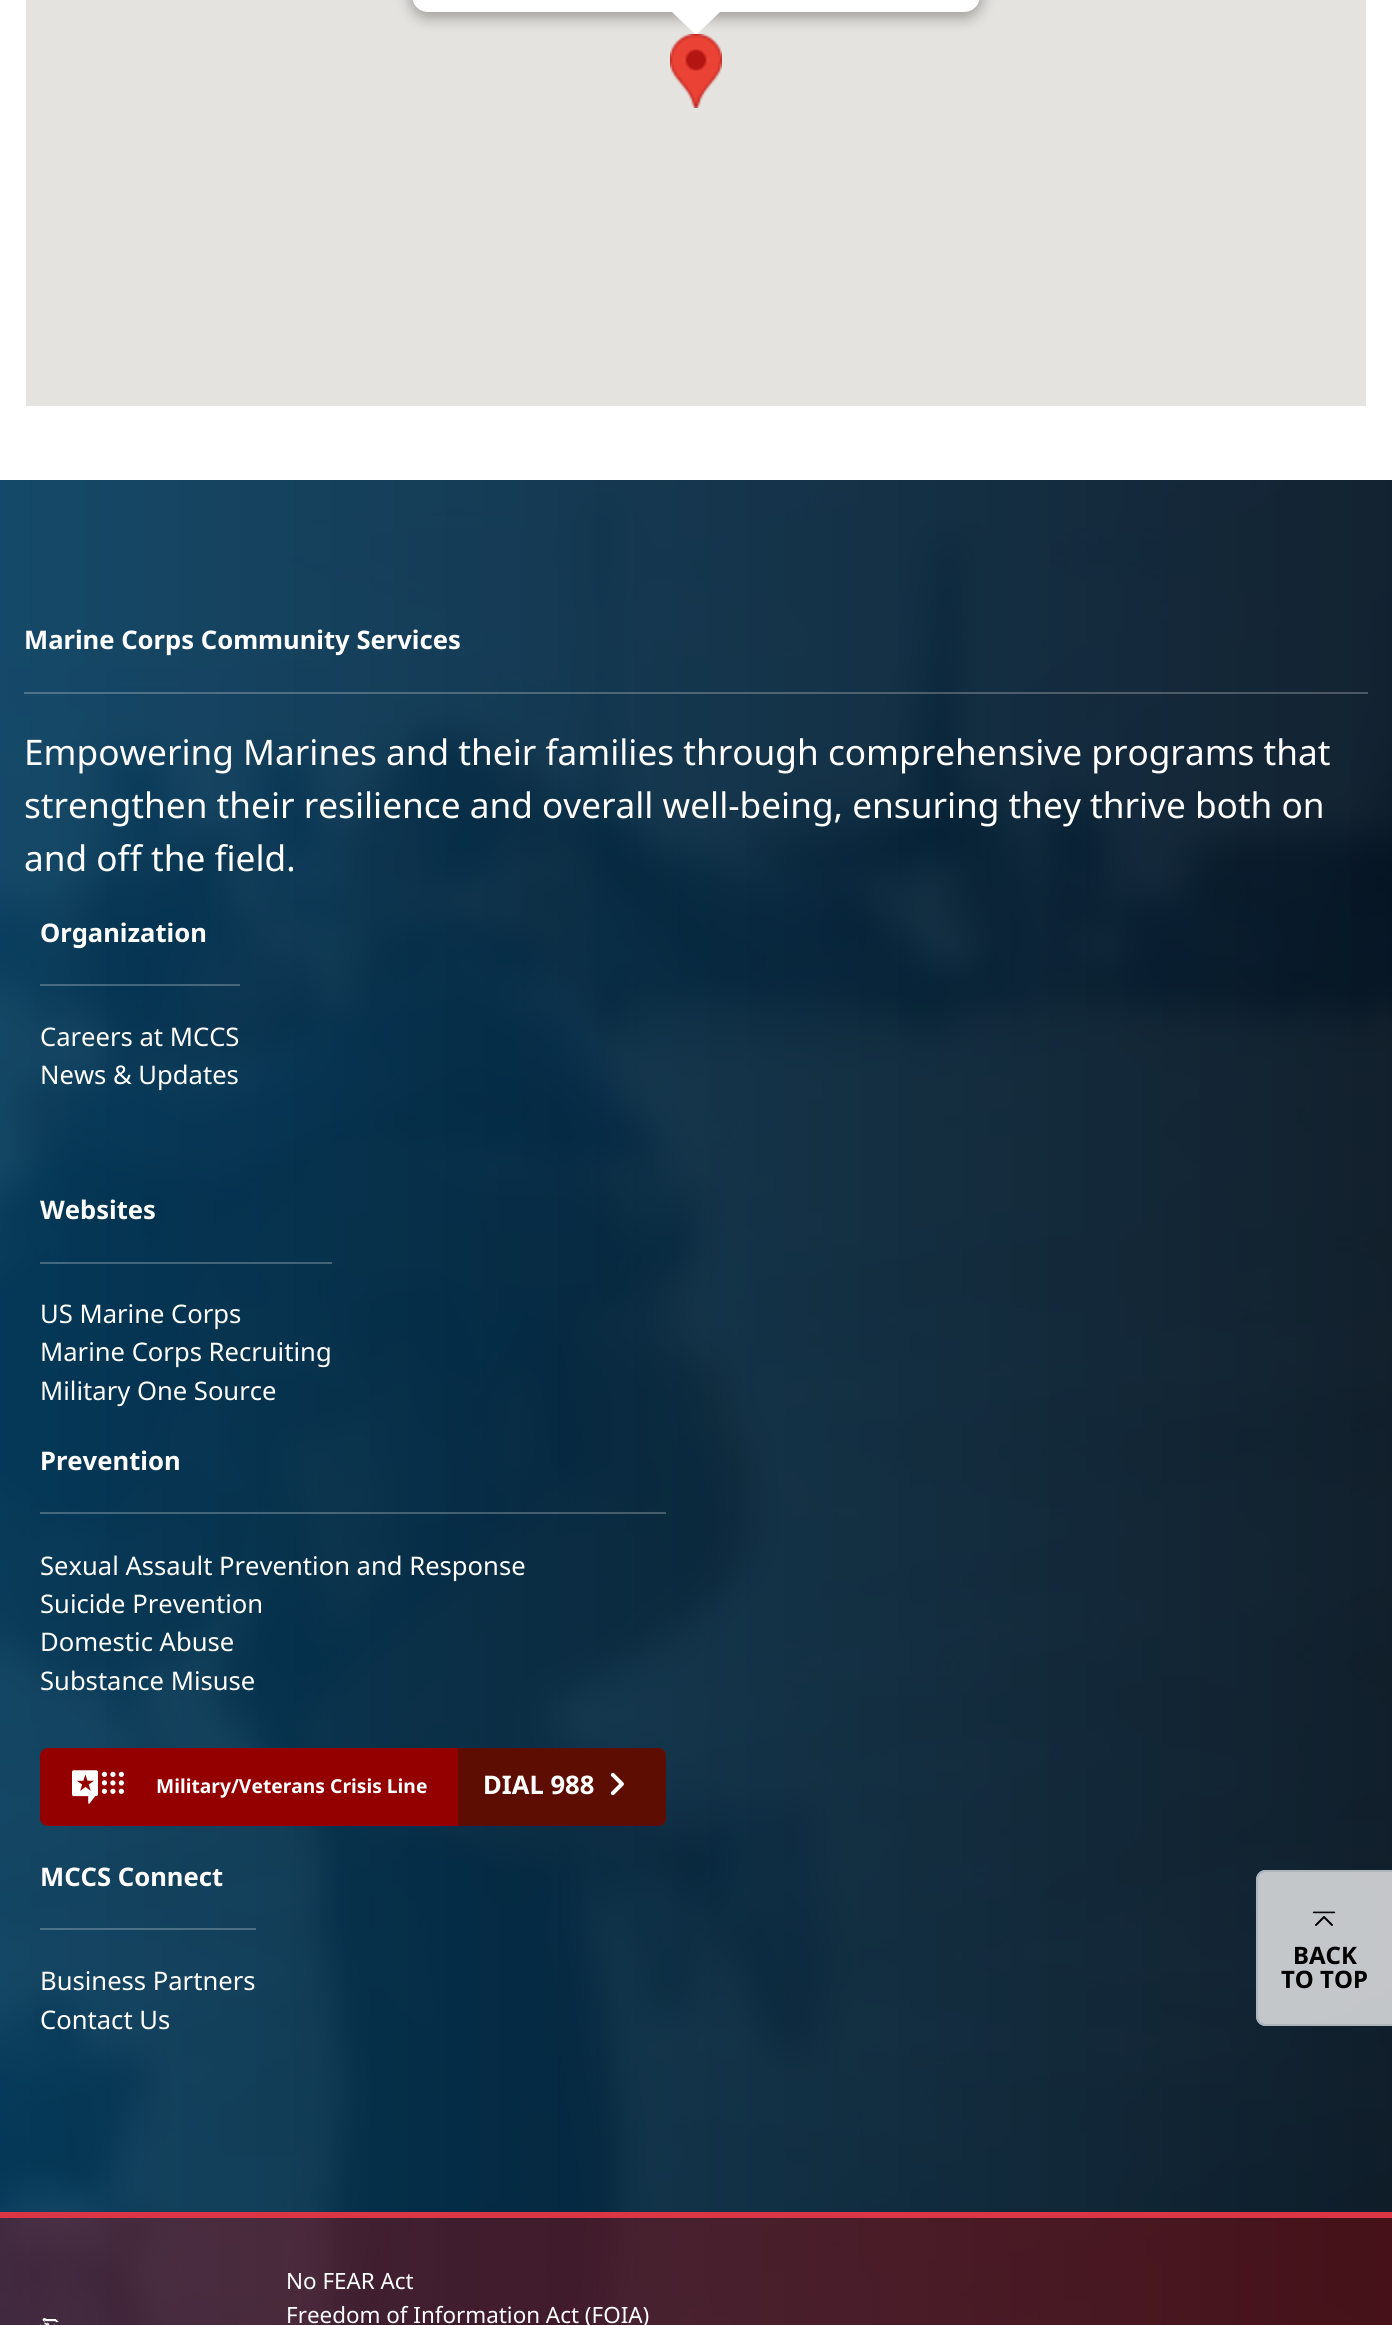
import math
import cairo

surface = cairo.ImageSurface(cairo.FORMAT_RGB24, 1392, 2325)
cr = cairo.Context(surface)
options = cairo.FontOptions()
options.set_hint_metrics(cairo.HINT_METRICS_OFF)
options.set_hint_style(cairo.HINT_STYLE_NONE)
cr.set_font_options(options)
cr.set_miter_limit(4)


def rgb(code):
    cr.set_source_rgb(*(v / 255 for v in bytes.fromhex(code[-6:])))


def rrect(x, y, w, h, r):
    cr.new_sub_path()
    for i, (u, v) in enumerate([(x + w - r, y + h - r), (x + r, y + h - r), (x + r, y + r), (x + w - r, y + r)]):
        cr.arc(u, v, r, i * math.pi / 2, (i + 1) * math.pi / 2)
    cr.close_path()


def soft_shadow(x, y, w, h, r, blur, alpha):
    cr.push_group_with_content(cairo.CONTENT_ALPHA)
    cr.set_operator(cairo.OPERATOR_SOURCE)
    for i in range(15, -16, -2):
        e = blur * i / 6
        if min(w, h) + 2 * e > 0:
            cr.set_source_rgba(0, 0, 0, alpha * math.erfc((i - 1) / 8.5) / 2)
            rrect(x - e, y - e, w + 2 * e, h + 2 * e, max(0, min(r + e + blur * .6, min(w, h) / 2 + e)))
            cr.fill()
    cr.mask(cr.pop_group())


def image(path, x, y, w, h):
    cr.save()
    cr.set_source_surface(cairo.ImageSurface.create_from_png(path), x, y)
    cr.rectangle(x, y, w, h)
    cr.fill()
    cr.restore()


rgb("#ffffff")
cr.paint()
image("img/1.png", 0, 480, 1392, 1845)
cr.set_source_rgba(0.973, 0.976, 0.98, 0.25)
cr.rectangle(24, 692, 1344, 2)
cr.fill()
cr.rectangle(40, 984, 200, 2)
cr.fill()
cr.rectangle(40, 1262, 292, 2)
cr.fill()
cr.rectangle(40, 1512, 626, 2)
cr.fill()
rgb("#940000")
rrect(40, 1748, 626, 78, 8)
cr.fill()
image("img/2.png", 72, 1770, 52, 34)
rgb("#5e0d02")
cr.new_path()
cr.move_to(458, 1748)
cr.line_to(658, 1748)
cr.curve_to(662.5, 1748, 666, 1751.5, 666, 1756)
cr.line_to(666, 1818)
cr.curve_to(666, 1822.5, 662.5, 1826, 658, 1826)
cr.line_to(458, 1826)
cr.close_path()
cr.fill()
image("img/3.png", 610, 1772, 14, 24)
cr.set_source_rgba(0.973, 0.976, 0.98, 0.25)
cr.rectangle(40, 1928, 216, 2)
cr.fill()
rgb("#dc3545")
cr.rectangle(0, 2212, 1392, 6)
cr.fill()
image("img/4.png", 39, 2318, 20, 7)
rgb("#e5e3df")
cr.rectangle(26, 0, 1340, 406)
cr.fill()
image("img/5.png", 670, 34, 52, 74)
rgb("#000000")
soft_shadow(410, -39, 572, 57, 18, 7, 0.3)
rgb("#ffffff")
rrect(412, -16, 568, 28, 16)
cr.fill()
cr.new_path()
cr.move_to(672, 12)
cr.line_to(672, 11)
cr.line_to(721, 11)
cr.line_to(697, 34)
cr.line_to(695, 34)
cr.close_path()
cr.fill()
cr.set_source_rgba(0.941, 0.941, 0.941, 0.8)
cr.new_path()
cr.move_to(1266, 1870)
cr.line_to(1392, 1870)
cr.line_to(1392, 2026)
cr.line_to(1266, 2026)
cr.curve_to(1260.5, 2026, 1256, 2021.5, 1256, 2016)
cr.line_to(1256, 1880)
cr.curve_to(1256, 1874.5, 1260.5, 1870, 1266, 1870)
cr.close_path()
cr.fill()
rgb("#adb5bd")
cr.set_fill_rule(cairo.FILL_RULE_EVEN_ODD)
cr.new_path()
cr.move_to(1266, 1870)
cr.line_to(1392, 1870)
cr.line_to(1392, 2026)
cr.line_to(1266, 2026)
cr.curve_to(1260, 2026, 1256, 2022, 1256, 2016)
cr.line_to(1256, 1880)
cr.curve_to(1256, 1874, 1260, 1870, 1266, 1870)
cr.close_path()
cr.move_to(1266, 1872)
cr.line_to(1392, 1872)
cr.line_to(1392, 2024)
cr.line_to(1266, 2024)
cr.curve_to(1262, 2024, 1258, 2020, 1258, 2016)
cr.line_to(1258, 1880)
cr.curve_to(1258, 1876, 1262, 1872, 1266, 1872)
cr.close_path()
cr.fill()
image("img/6.png", 1312, 1911, 24, 15)
cr.select_font_face("Noto Sans", cairo.FONT_SLANT_NORMAL, cairo.FONT_WEIGHT_BOLD)
cr.set_font_size(25.6)
rgb("#ffffff")
cr.move_to(24, 649)
cr.show_text("Marine Corps Community Services")
cr.select_font_face("Noto Sans")
cr.set_font_size(35.2)
for x, y, s in [
    (24, 765, "Empowering Marines and their families through comprehensive programs that"),
    (24, 818, "strengthen their resilience and overall well-being, ensuring they thrive both on"),
    (24, 871, "and off the field."),
]:
    cr.move_to(x, y)
    cr.show_text(s)
cr.select_font_face("Noto Sans", cairo.FONT_SLANT_NORMAL, cairo.FONT_WEIGHT_BOLD)
cr.set_font_size(25.6)
cr.move_to(40, 942)
cr.show_text("Organization")
cr.select_font_face("Noto Sans")
cr.move_to(40, 1046)
cr.show_text("Careers at MCCS")
cr.move_to(40, 1084)
cr.show_text("News & Updates")
cr.select_font_face("Noto Sans", cairo.FONT_SLANT_NORMAL, cairo.FONT_WEIGHT_BOLD)
cr.move_to(40, 1219)
cr.show_text("Websites")
cr.select_font_face("Noto Sans")
for x, y, s in [
    (40, 1323, "US Marine Corps"),
    (40, 1361, "Marine Corps Recruiting"),
    (40, 1400, "Military One Source"),
]:
    cr.move_to(x, y)
    cr.show_text(s)
cr.select_font_face("Noto Sans", cairo.FONT_SLANT_NORMAL, cairo.FONT_WEIGHT_BOLD)
cr.move_to(40, 1470)
cr.show_text("Prevention")
cr.select_font_face("Noto Sans")
for x, y, s in [
    (40, 1575, "Sexual Assault Prevention and Response"),
    (40, 1613, "Suicide Prevention"),
    (40, 1651, "Domestic Abuse"),
    (40, 1690, "Substance Misuse"),
]:
    cr.move_to(x, y)
    cr.show_text(s)
cr.select_font_face("Noto Sans", cairo.FONT_SLANT_NORMAL, cairo.FONT_WEIGHT_BOLD)
cr.set_font_size(19.25)
cr.move_to(156, 1793)
cr.show_text("Military/Veterans Crisis Line")
cr.set_font_size(25.6)
cr.move_to(483, 1794)
cr.show_text("DIAL 988")
cr.move_to(40, 1886)
cr.show_text("MCCS Connect")
cr.select_font_face("Noto Sans")
cr.move_to(40, 1990)
cr.show_text("Business Partners")
cr.move_to(40, 2029)
cr.show_text("Contact Us")
cr.set_font_size(22.4)
cr.move_to(286, 2289)
cr.show_text("No FEAR Act")
cr.move_to(286, 2323)
cr.show_text("Freedom of Information Act (FOIA)")
cr.select_font_face("Noto Sans", cairo.FONT_SLANT_NORMAL, cairo.FONT_WEIGHT_BOLD)
cr.set_font_size(24)
rgb("#000000")
cr.move_to(1293, 1964)
cr.show_text("BACK")
cr.move_to(1281, 1988)
cr.show_text("TO TOP")
surface.write_to_png("page.png")
